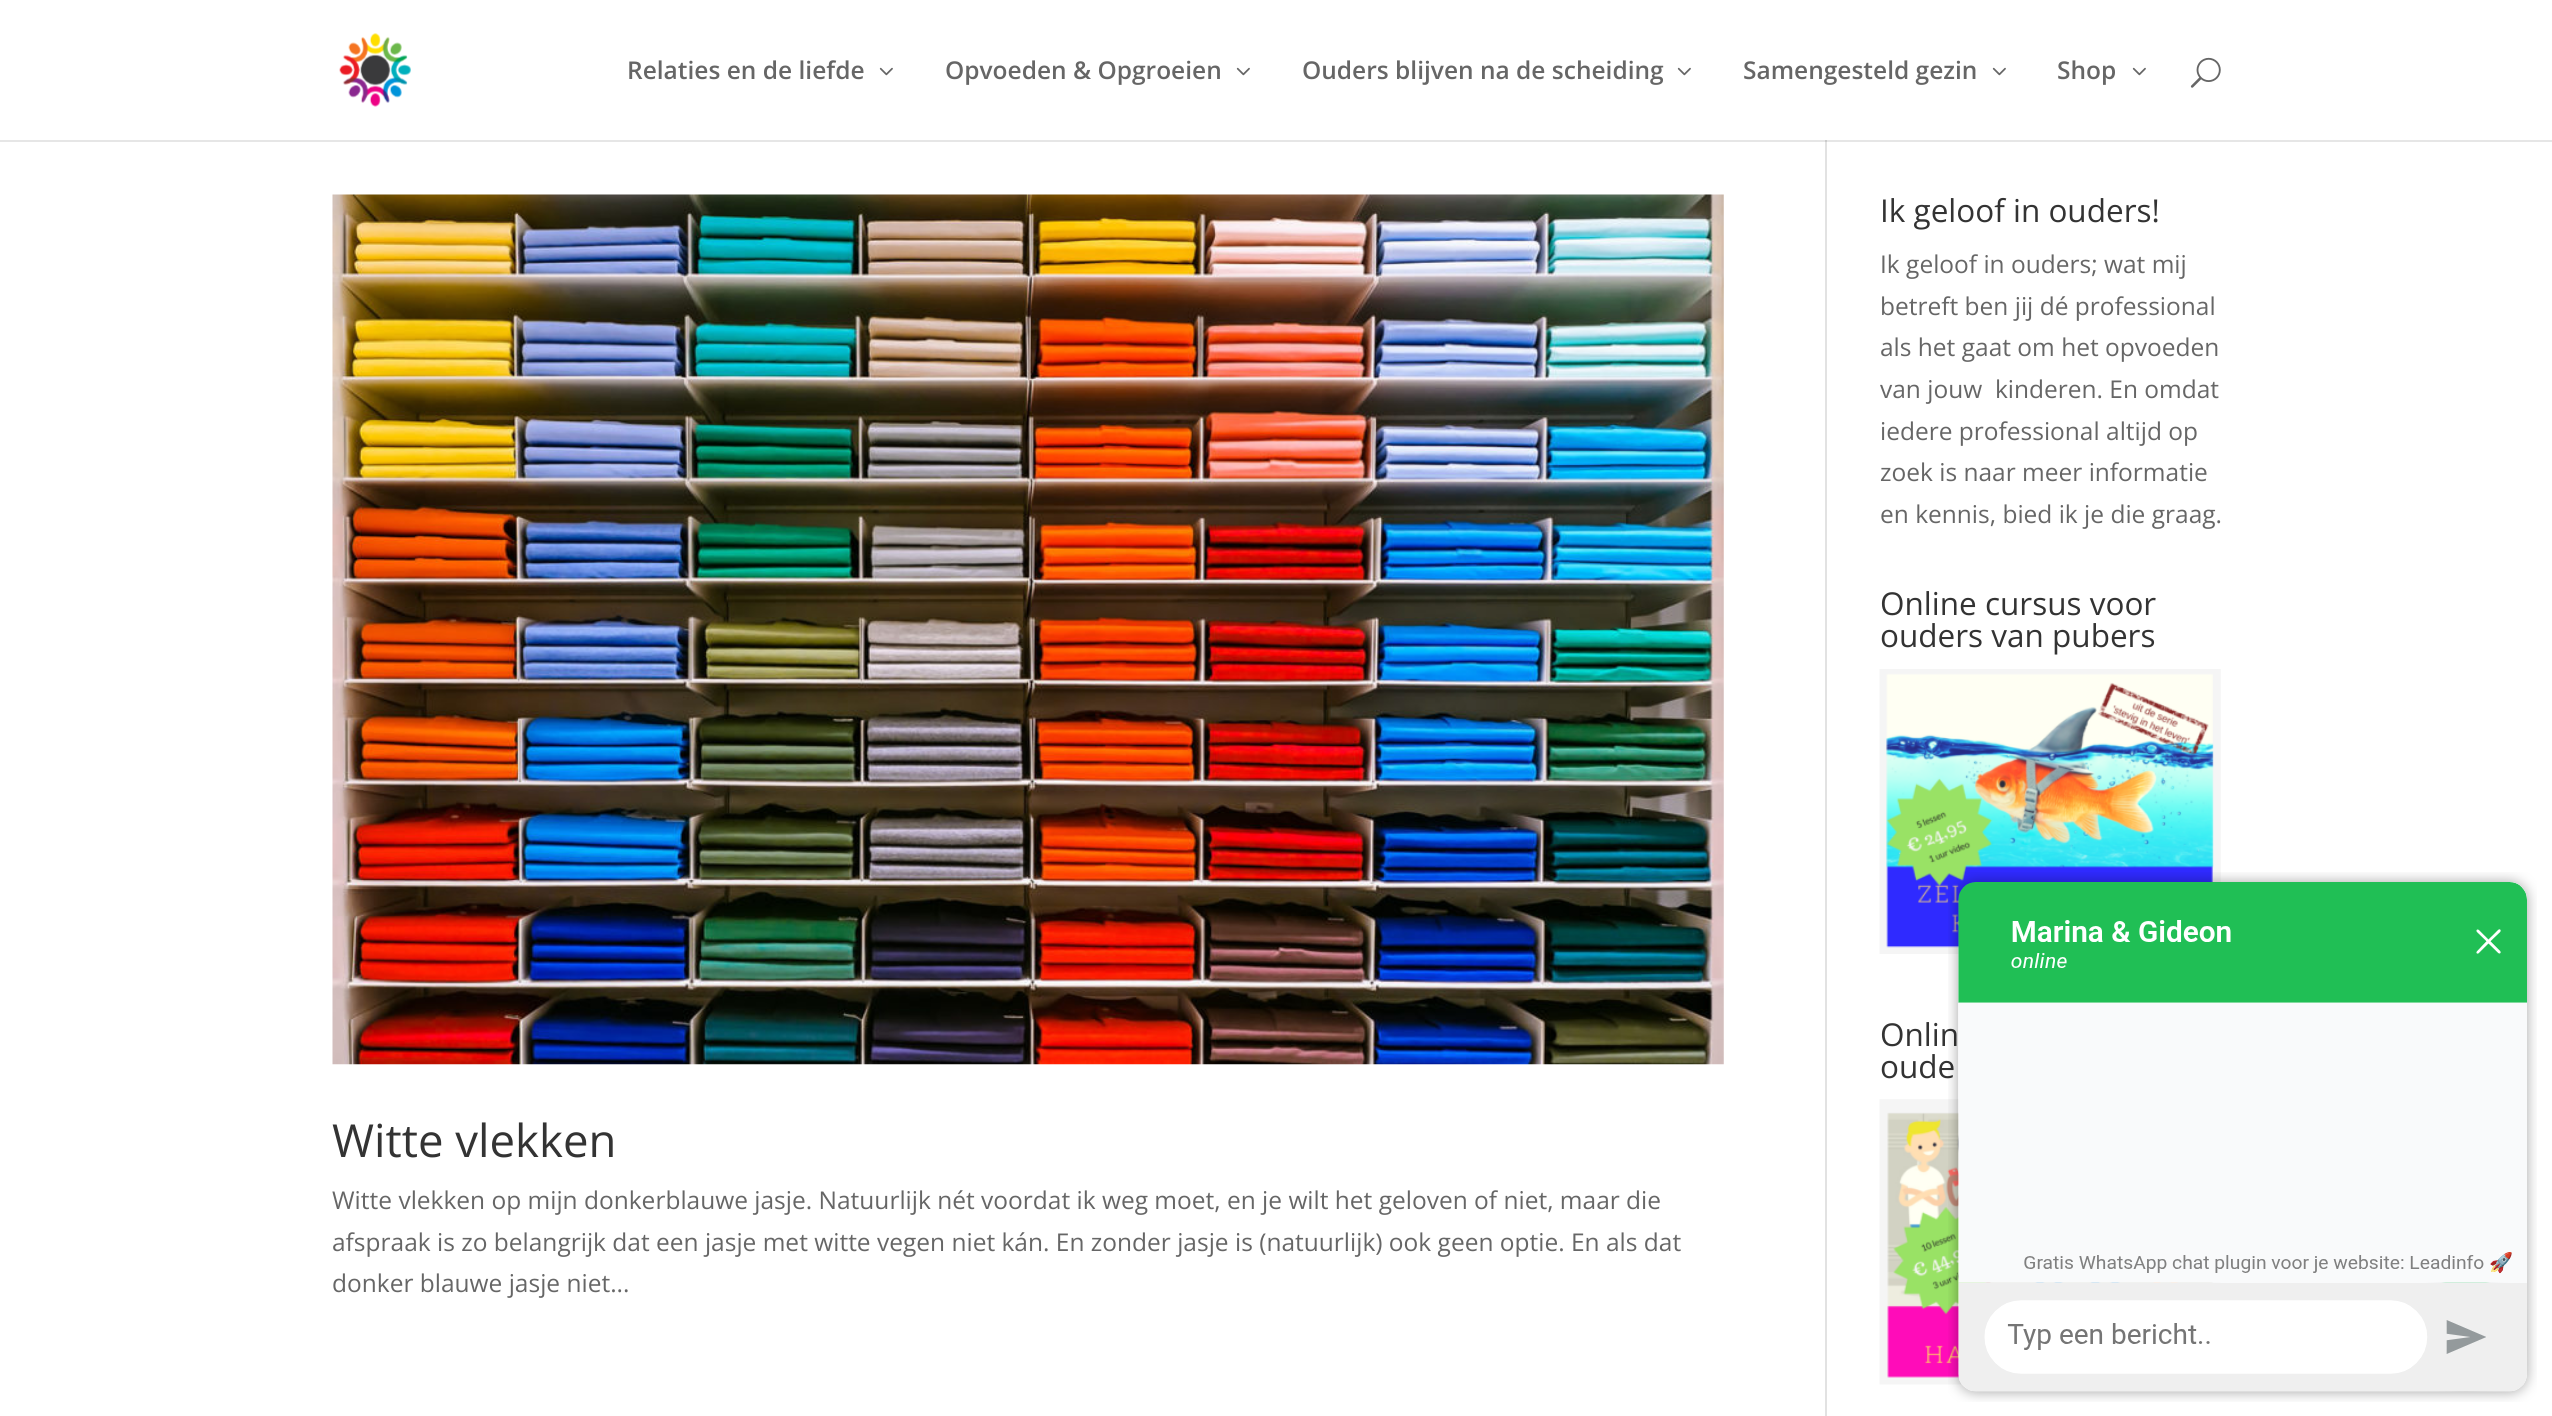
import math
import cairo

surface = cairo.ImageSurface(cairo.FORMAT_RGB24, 2552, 1416)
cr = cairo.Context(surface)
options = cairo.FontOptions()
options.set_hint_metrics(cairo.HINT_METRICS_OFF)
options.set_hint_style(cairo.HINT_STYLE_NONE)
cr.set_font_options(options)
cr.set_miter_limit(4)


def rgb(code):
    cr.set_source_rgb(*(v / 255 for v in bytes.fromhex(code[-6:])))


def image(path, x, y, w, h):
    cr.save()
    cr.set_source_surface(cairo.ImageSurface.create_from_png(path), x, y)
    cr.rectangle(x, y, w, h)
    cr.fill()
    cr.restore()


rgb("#ffffff")
cr.paint()
rgb("#e6e6e6")
cr.rectangle(0, 140, 2552, 2)
cr.fill()
image("img/1.png", 339, 33, 72, 74)
image("img/2.png", 879, 67, 14, 9)
image("img/2.png", 1236, 67, 14, 9)
image("img/2.png", 1677, 67, 14, 9)
image("img/2.png", 1992, 67, 14, 9)
image("img/2.png", 2132, 67, 14, 9)
image("img/3.png", 2190, 57, 31, 31)
rgb("#e2e2e2")
cr.rectangle(1825, 142, 2, 1274)
cr.fill()
rgb("#cbcbcb")
cr.rectangle(1825, 140, 2, 2)
cr.fill()
image("img/4.png", 1879, 669, 342, 285)
image("img/5.png", 1879, 1099, 342, 286)
image("img/6.png", 332, 194, 1392, 871)
image("img/8.png", 2426, 1282, 102, 110)
cr.select_font_face("Open Sans SemiBold")
cr.set_font_size(24.5)
rgb("#666666")
for x, y, s in [
    (627, 79, "Relaties en de liefde"),
    (945, 79, "Opvoeden & Opgroeien"),
    (1302, 79, "Ouders blijven na de scheiding"),
    (1743, 79, "Samengesteld gezin"),
    (2057, 79, "Shop"),
]:
    cr.move_to(x, y)
    cr.show_text(s)
cr.select_font_face("Open Sans")
cr.set_font_size(31.5)
rgb("#333333")
cr.move_to(1880, 222)
cr.show_text("Ik geloof in ouders!")
cr.set_font_size(24.5)
rgb("#666666")
for x, y, s in [
    (1880, 273, "Ik geloof in ouders; wat mij"),
    (1880, 315, "betreft ben jij dé professional"),
    (1880, 356, "als het gaat om het opvoeden"),
    (1880, 398, "van jouw  kinderen. En omdat"),
    (1880, 440, "iedere professional altijd op"),
    (1880, 481, "zoek is naar meer informatie"),
    (1880, 523, "en kennis, bied ik je die graag."),
]:
    cr.move_to(x, y)
    cr.show_text(s)
cr.set_font_size(31.5)
rgb("#333333")
for x, y, s in [
    (1880, 615, "Online cursus voor"),
    (1880, 647, "ouders van pubers"),
    (1880, 1046, "Onlin"),
    (1880, 1078, "oude"),
]:
    cr.move_to(x, y)
    cr.show_text(s)
cr.set_font_size(45.5)
cr.move_to(332, 1157)
cr.show_text("Witte vlekken")
cr.set_font_size(24.5)
rgb("#666666")
for x, y, s in [
    (332, 1209, "Witte vlekken op mijn donkerblauwe jasje. Natuurlijk nét voordat ik weg moet, en je wilt het geloven of niet, maar die"),
    (332, 1251, "afspraak is zo belangrijk dat een jasje met witte vegen niet kán. En zonder jasje is (natuurlijk) ook geen optie. En als dat"),
    (332, 1292, "donker blauwe jasje niet..."),
]:
    cr.move_to(x, y)
    cr.show_text(s)
image("img/7.png", 1948, 872, 589, 530)
surface.write_to_png("page.png")
